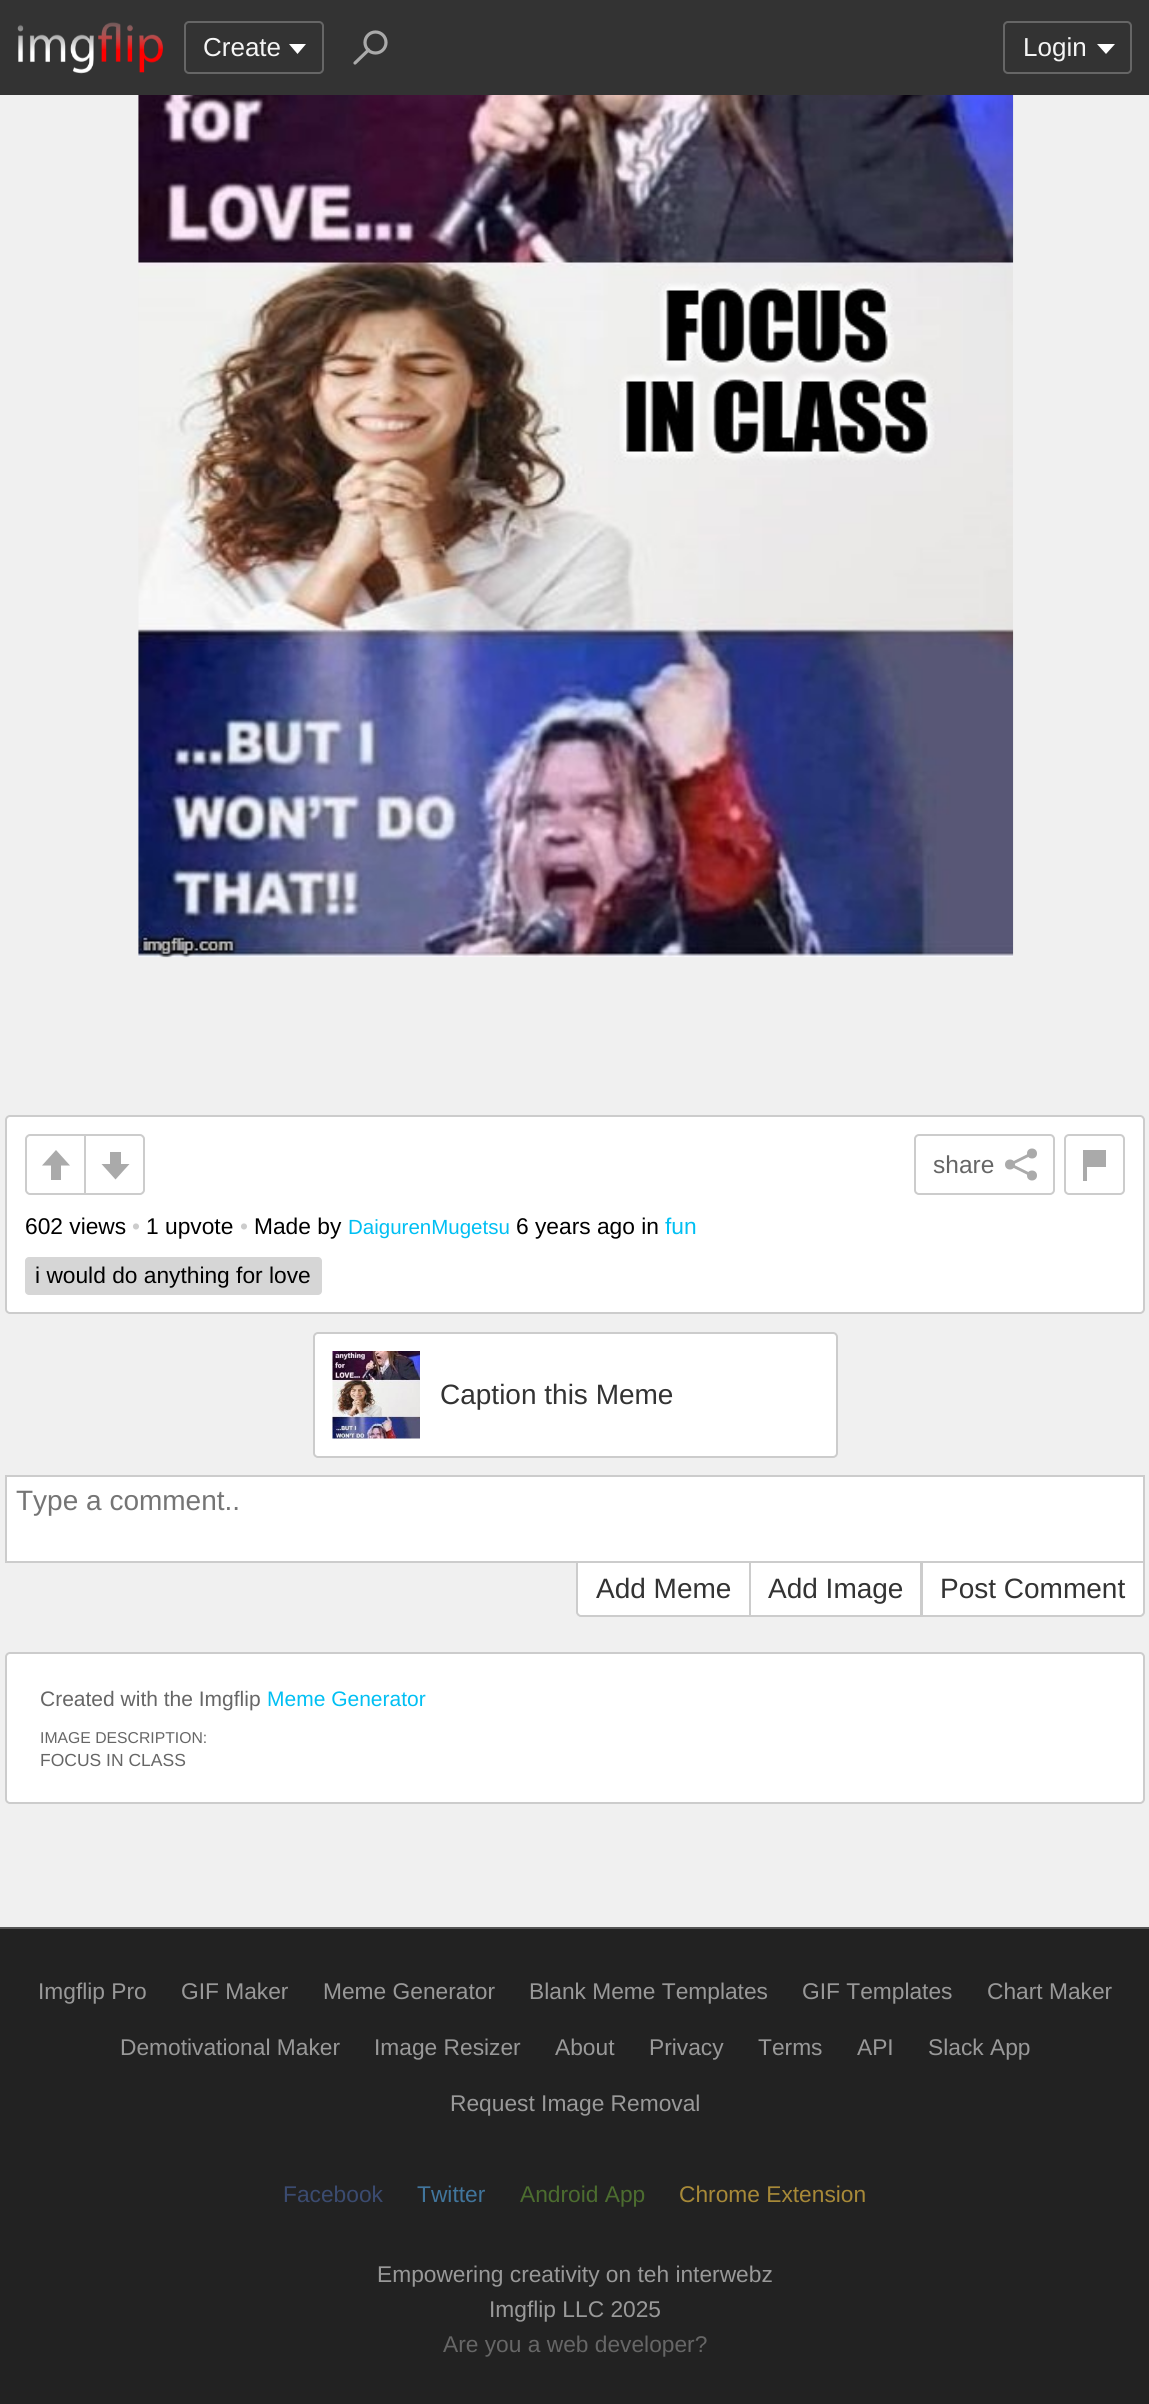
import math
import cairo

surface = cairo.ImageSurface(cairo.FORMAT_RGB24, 1149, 2404)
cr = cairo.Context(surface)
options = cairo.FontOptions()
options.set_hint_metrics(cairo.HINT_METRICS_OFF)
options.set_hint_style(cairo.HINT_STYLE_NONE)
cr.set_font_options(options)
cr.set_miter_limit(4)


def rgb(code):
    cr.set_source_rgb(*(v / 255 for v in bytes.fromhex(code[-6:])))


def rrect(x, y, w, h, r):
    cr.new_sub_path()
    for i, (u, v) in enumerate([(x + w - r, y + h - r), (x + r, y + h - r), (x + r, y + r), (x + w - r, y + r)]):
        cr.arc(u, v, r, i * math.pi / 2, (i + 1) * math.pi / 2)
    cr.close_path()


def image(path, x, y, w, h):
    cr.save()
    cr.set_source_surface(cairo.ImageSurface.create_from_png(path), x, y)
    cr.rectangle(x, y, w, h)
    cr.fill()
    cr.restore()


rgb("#f0f0f0")
cr.paint()
rgb("#333333")
cr.rectangle(0, 0, 1149, 95)
cr.fill()
image("img/1.png", 17, 22, 146, 52)
rrect(185, 22, 138, 51, 4)
rgb("#666666")
cr.stroke()
rgb("#ffffff")
cr.new_path()
cr.move_to(289, 44)
cr.line_to(306, 44)
cr.line_to(297.5, 54)
cr.close_path()
cr.fill()
cr.new_path()
cr.move_to(355, 63)
cr.line_to(368.5, 50)
rgb("#aaaaaa")
cr.set_line_width(3.2)
cr.set_line_cap(cairo.LINE_CAP_ROUND)
cr.stroke()
cr.arc(375.5, 42.5, 10.5, 0, 2 * math.pi)
cr.set_line_cap(cairo.LINE_CAP_BUTT)
cr.stroke()
rrect(1004, 22, 127, 51, 4)
rgb("#666666")
cr.set_line_width(2)
cr.stroke()
rgb("#ffffff")
cr.new_path()
cr.move_to(1097, 44)
cr.line_to(1115, 44)
cr.line_to(1106, 54)
cr.close_path()
cr.fill()
image("img/2.png", 138, 95, 876, 863)
rrect(6, 1116, 1138, 197, 4)
cr.fill_preserve()
rgb("#cccccc")
cr.stroke()
cr.new_path()
cr.move_to(30, 1135)
cr.line_to(85, 1135)
cr.line_to(85, 1194)
cr.line_to(30, 1194)
cr.curve_to(28, 1194, 26, 1192, 26, 1190)
cr.line_to(26, 1139)
cr.curve_to(26, 1137, 28, 1135, 30, 1135)
cr.close_path()
cr.stroke()
rgb("#aaaaaa")
cr.rectangle(51, 1165, 10, 15)
cr.fill()
cr.new_path()
cr.move_to(70, 1165.5)
cr.line_to(42, 1165.5)
cr.line_to(56, 1150)
cr.close_path()
cr.fill()
rgb("#ffffff")
cr.new_path()
cr.move_to(85, 1135)
cr.line_to(140, 1135)
cr.curve_to(142, 1135, 144, 1137, 144, 1139)
cr.line_to(144, 1190)
cr.curve_to(144, 1192, 142, 1194, 140, 1194)
cr.line_to(85, 1194)
cr.close_path()
cr.fill_preserve()
rgb("#cccccc")
cr.stroke()
rgb("#aaaaaa")
cr.rectangle(110, 1152, 11, 12)
cr.fill()
cr.new_path()
cr.move_to(101.5, 1164)
cr.line_to(129.5, 1164)
cr.line_to(115.5, 1179.5)
cr.close_path()
cr.fill()
rrect(915, 1135, 139, 59, 4)
rgb("#cccccc")
cr.stroke()
cr.new_path()
cr.move_to(1032, 1153.5)
cr.line_to(1010, 1164.5)
cr.line_to(1032, 1175.5)
rgb("#aaaaaa")
cr.set_line_width(2.9)
cr.stroke()
cr.arc(1032, 1153.5, 5, 0, 2 * math.pi)
cr.fill()
cr.arc(1010, 1164.5, 5, 0, 2 * math.pi)
cr.fill()
cr.arc(1032, 1175.5, 5, 0, 2 * math.pi)
cr.fill()
rrect(1065, 1135, 59, 59, 4)
rgb("#cccccc")
cr.set_line_width(2)
cr.stroke()
rgb("#aaaaaa")
cr.rectangle(1083, 1150, 23, 17)
cr.fill()
cr.rectangle(1083, 1167, 4, 14)
cr.fill()
rgb("#d6d6d6")
rrect(25, 1257, 297, 38, 4)
cr.fill()
rgb("#ffffff")
rrect(314, 1333, 523, 124, 4)
cr.fill_preserve()
rgb("#cccccc")
cr.stroke()
image("img/3.png", 332, 1351, 88, 88)
rgb("#ffffff")
cr.new_path()
cr.move_to(577, 1562)
cr.line_to(750, 1562)
cr.line_to(750, 1616)
cr.line_to(581, 1616)
cr.curve_to(579, 1616, 577, 1614, 577, 1612)
cr.close_path()
cr.fill_preserve()
rgb("#cccccc")
cr.stroke()
rgb("#ffffff")
cr.rectangle(750, 1562, 171, 54)
cr.fill_preserve()
rgb("#cccccc")
cr.stroke()
rgb("#ffffff")
cr.new_path()
cr.move_to(922, 1562)
cr.line_to(1144, 1562)
cr.line_to(1144, 1612)
cr.curve_to(1144, 1614, 1142, 1616, 1140, 1616)
cr.line_to(922, 1616)
cr.close_path()
cr.fill_preserve()
rgb("#cccccc")
cr.stroke()
rgb("#ffffff")
cr.rectangle(6, 1476, 1138, 86)
cr.fill_preserve()
rgb("#cccccc")
cr.stroke()
rgb("#ffffff")
rrect(6, 1653, 1138, 150, 4)
cr.fill_preserve()
rgb("#cccccc")
cr.stroke()
rgb("#222222")
cr.rectangle(0, 1929, 1149, 475)
cr.fill()
rgb("#555555")
cr.rectangle(0, 1927, 1149, 2)
cr.fill()
cr.select_font_face("Liberation Sans")
cr.set_font_size(26)
rgb("#f5f5f5")
cr.move_to(203, 56)
cr.show_text("Create")
cr.move_to(1023, 56)
cr.show_text("Login")
cr.set_font_size(24.5)
rgb("#666666")
cr.move_to(933, 1173)
cr.show_text("share")
cr.set_font_size(22.75)
rgb("#000000")
cr.move_to(25, 1234)
cr.show_text("602 views")
rgb("#cccccc")
cr.move_to(132, 1234)
cr.show_text("•")
rgb("#000000")
cr.move_to(146, 1234)
cr.show_text("1 upvote")
rgb("#cccccc")
cr.move_to(240, 1234)
cr.show_text("•")
rgb("#000000")
cr.move_to(254, 1234)
cr.show_text("Made by")
cr.set_font_size(20.5)
rgb("#00bff3")
cr.move_to(348, 1234)
cr.show_text("DaigurenMugetsu")
cr.set_font_size(22.75)
rgb("#000000")
cr.move_to(516, 1234)
cr.show_text("6 years ago in")
rgb("#00bff3")
cr.move_to(665, 1234)
cr.show_text("fun")
rgb("#000000")
cr.move_to(35, 1283)
cr.show_text("i would do anything for love")
cr.set_font_size(28)
rgb("#333333")
cr.move_to(440, 1404)
cr.show_text("Caption this Meme")
rgb("#757575")
cr.move_to(16, 1510)
cr.show_text("Type a comment..")
rgb("#333333")
for x, y, s in [
    (596, 1598, "Add Meme"),
    (768, 1598, "Add Image"),
    (940, 1598, "Post Comment"),
]:
    cr.move_to(x, y)
    cr.show_text(s)
cr.set_font_size(21)
rgb("#666666")
cr.move_to(40, 1706)
cr.show_text("Created with the Imgflip")
rgb("#00bff3")
cr.move_to(267, 1706)
cr.show_text("Meme Generator")
cr.set_font_size(15.75)
rgb("#666666")
cr.move_to(40, 1743)
cr.show_text("IMAGE DESCRIPTION:")
cr.set_font_size(17.5)
cr.move_to(40, 1766)
cr.show_text("FOCUS IN CLASS")
cr.set_font_size(22.75)
rgb("#999999")
for x, y, s in [
    (38, 1999, "Imgflip Pro"),
    (181, 1999, "GIF Maker"),
    (323, 1999, "Meme Generator"),
    (529, 1999, "Blank Meme Templates"),
    (802, 1999, "GIF Templates"),
    (987, 1999, "Chart Maker"),
    (120, 2055, "Demotivational Maker"),
    (374, 2055, "Image Resizer"),
    (555, 2055, "About"),
    (649, 2055, "Privacy"),
    (758, 2055, "Terms"),
    (857, 2055, "API"),
    (928, 2055, "Slack App"),
    (450, 2111, "Request Image Removal"),
]:
    cr.move_to(x, y)
    cr.show_text(s)
rgb("#3b4b70")
cr.move_to(283, 2202)
cr.show_text("Facebook")
rgb("#41759c")
cr.move_to(417, 2202)
cr.show_text("Twitter")
rgb("#4c6d2f")
cr.move_to(520, 2202)
cr.show_text("Android App")
rgb("#a78938")
cr.move_to(679, 2202)
cr.show_text("Chrome Extension")
rgb("#999999")
cr.move_to(377, 2282)
cr.show_text("Empowering creativity on teh interwebz")
cr.move_to(489, 2317)
cr.show_text("Imgflip LLC 2025")
rgb("#666666")
cr.move_to(443, 2352)
cr.show_text("Are you a web developer?")
surface.write_to_png("page.png")
